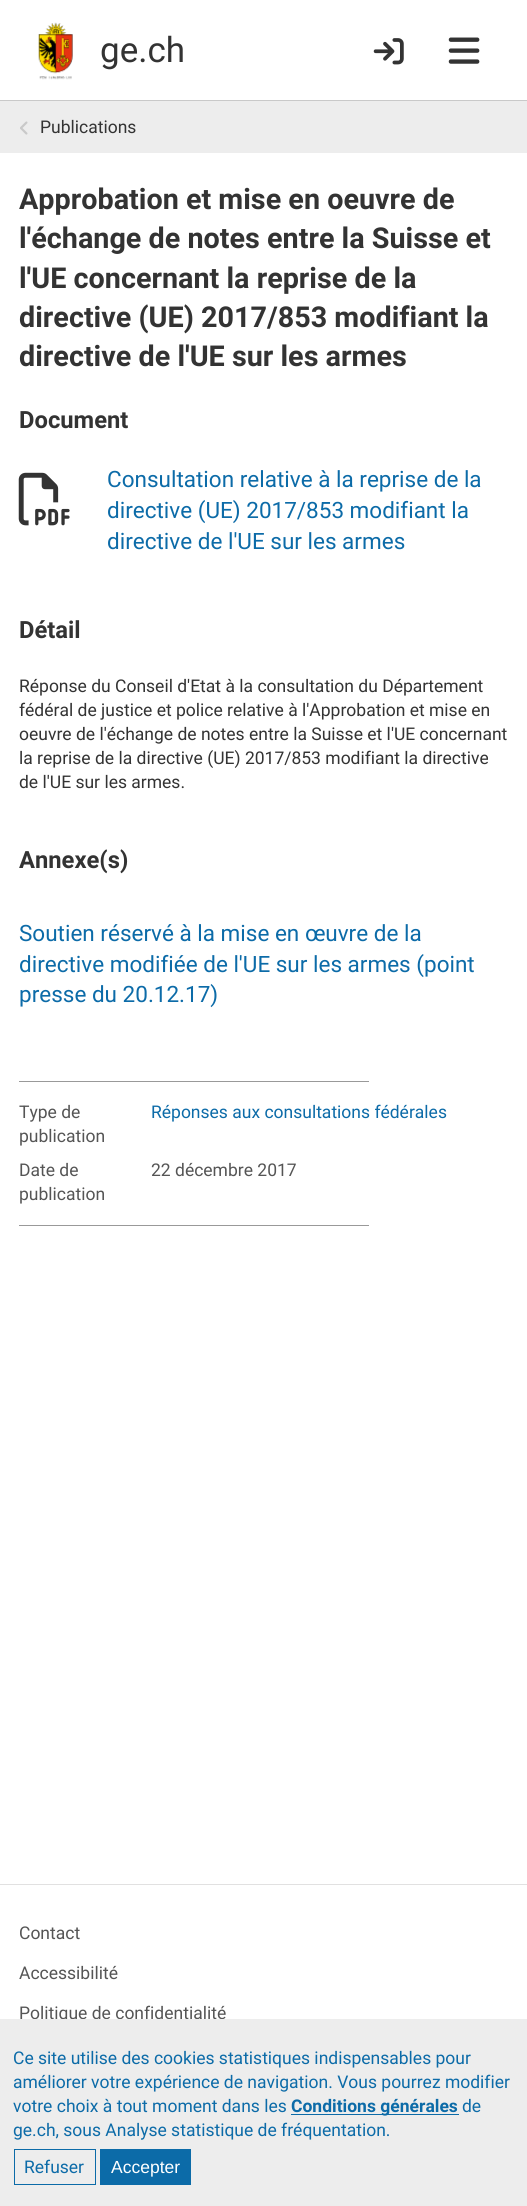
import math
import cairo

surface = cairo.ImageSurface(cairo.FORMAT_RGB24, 527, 2206)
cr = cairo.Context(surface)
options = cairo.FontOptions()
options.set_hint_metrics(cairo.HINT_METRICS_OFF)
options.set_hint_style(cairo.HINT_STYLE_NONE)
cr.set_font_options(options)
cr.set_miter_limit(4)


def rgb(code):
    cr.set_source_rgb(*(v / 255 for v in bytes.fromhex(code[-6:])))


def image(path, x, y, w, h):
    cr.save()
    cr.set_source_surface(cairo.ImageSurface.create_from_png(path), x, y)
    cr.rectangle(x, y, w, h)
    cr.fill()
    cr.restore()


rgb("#ffffff")
cr.paint()
rgb("#c9c9c9")
cr.rectangle(0, 100, 527, 1)
cr.fill()
image("img/1.png", 38, 22, 35, 58)
image("img/2.png", 373, 38, 31, 27)
image("img/3.png", 448, 37, 32, 27)
rgb("#ededed")
cr.rectangle(0, 101, 527, 52)
cr.fill()
image("img/4.png", 20, 121, 8, 14)
image("img/5.png", 18, 472, 52, 54)
for x, y, w, h, color in [
    (19, 1081, 350, 1, "#999999"),
    (19, 1225, 350, 1, "#999999"),
    (0, 1884, 527, 1, "#e1e1e1"),
]:
    rgb(color)
    cr.rectangle(x, y, w, h)
    cr.fill()
cr.select_font_face("Roboto")
cr.set_font_size(35)
rgb("#333333")
cr.move_to(100, 62)
cr.show_text("ge.ch")
cr.set_font_size(17.5)
cr.move_to(40, 133)
cr.show_text("Publications")
cr.select_font_face("Roboto", cairo.FONT_SLANT_NORMAL, cairo.FONT_WEIGHT_BOLD)
cr.set_font_size(28.75)
for x, y, s in [
    (19, 209, "Approbation et mise en oeuvre de"),
    (19, 248, "l'échange de notes entre la Suisse et"),
    (19, 288, "l'UE concernant la reprise de la"),
    (19, 327, "directive (UE) 2017/853 modifiant la"),
    (19, 366, "directive de l'UE sur les armes"),
]:
    cr.move_to(x, y)
    cr.show_text(s)
cr.set_font_size(23.75)
cr.move_to(19, 428)
cr.show_text("Document")
cr.select_font_face("Roboto")
cr.set_font_size(22.5)
rgb("#0c6ba8")
for x, y, s in [
    (107, 487, "Consultation relative à la reprise de la"),
    (107, 518, "directive (UE) 2017/853 modifiant la"),
    (107, 549, "directive de l'UE sur les armes"),
]:
    cr.move_to(x, y)
    cr.show_text(s)
cr.select_font_face("Roboto", cairo.FONT_SLANT_NORMAL, cairo.FONT_WEIGHT_BOLD)
cr.set_font_size(23.75)
rgb("#333333")
cr.move_to(19, 638)
cr.show_text("Détail")
cr.select_font_face("Roboto")
cr.set_font_size(17.5)
for x, y, s in [
    (19, 692, "Réponse du Conseil d'Etat à la consultation du Département"),
    (19, 716, "fédéral de justice et police relative à l'Approbation et mise en"),
    (19, 740, "oeuvre de l'échange de notes entre la Suisse et l'UE concernant"),
    (19, 764, "la reprise de la directive (UE) 2017/853 modifiant la directive"),
    (19, 788, "de l'UE sur les armes."),
]:
    cr.move_to(x, y)
    cr.show_text(s)
cr.select_font_face("Roboto", cairo.FONT_SLANT_NORMAL, cairo.FONT_WEIGHT_BOLD)
cr.set_font_size(23.75)
cr.move_to(19, 868)
cr.show_text("Annexe(s)")
cr.select_font_face("Roboto")
cr.set_font_size(22.5)
rgb("#0c6ba8")
for x, y, s in [
    (19, 941, "Soutien réservé à la mise en œuvre de la"),
    (19, 972, "directive modifiée de l'UE sur les armes (point"),
    (19, 1002, "presse du 20.12.17)"),
]:
    cr.move_to(x, y)
    cr.show_text(s)
cr.set_font_size(17.5)
rgb("#555555")
cr.move_to(19, 1118)
cr.show_text("Type de")
cr.move_to(19, 1142)
cr.show_text("publication")
rgb("#0c6ba8")
cr.move_to(151, 1118)
cr.show_text("Réponses aux consultations fédérales")
rgb("#555555")
for x, y, s in [
    (19, 1176, "Date de"),
    (19, 1200, "publication"),
    (151, 1176, "22 décembre 2017"),
    (19, 1939, "Contact"),
    (19, 1979, "Accessibilité"),
    (19, 2019, "Politique de confidentialité"),
]:
    cr.move_to(x, y)
    cr.show_text(s)
rgb("#ededed")
cr.rectangle(0, 2019, 527, 187)
cr.fill()
rgb("#0c6ba8")
for x, y, s in [
    (13, 2064, "Ce site utilise des cookies statistiques indispensables pour"),
    (13, 2088, "améliorer votre expérience de navigation. Vous pourrez modifier"),
    (13, 2112, "votre choix à tout moment dans les"),
]:
    cr.move_to(x, y)
    cr.show_text(s)
cr.rectangle(291, 2114, 168, 1)
cr.fill()
cr.select_font_face("Roboto", cairo.FONT_SLANT_NORMAL, cairo.FONT_WEIGHT_BOLD)
cr.move_to(291, 2112)
cr.show_text("Conditions générales")
cr.select_font_face("Roboto")
cr.move_to(462, 2112)
cr.show_text("de")
cr.move_to(13, 2136)
cr.show_text("ge.ch, sous Analyse statistique de fréquentation.")
cr.rectangle(14.5, 2149.5, 81, 35)
cr.set_line_width(1)
cr.stroke()
cr.move_to(24, 2173)
cr.show_text("Refuser")
cr.rectangle(100, 2149, 91, 36)
cr.fill()
cr.select_font_face("Liberation Sans")
rgb("#ffffff")
cr.move_to(111, 2173)
cr.show_text("Accepter")
surface.write_to_png("page.png")
